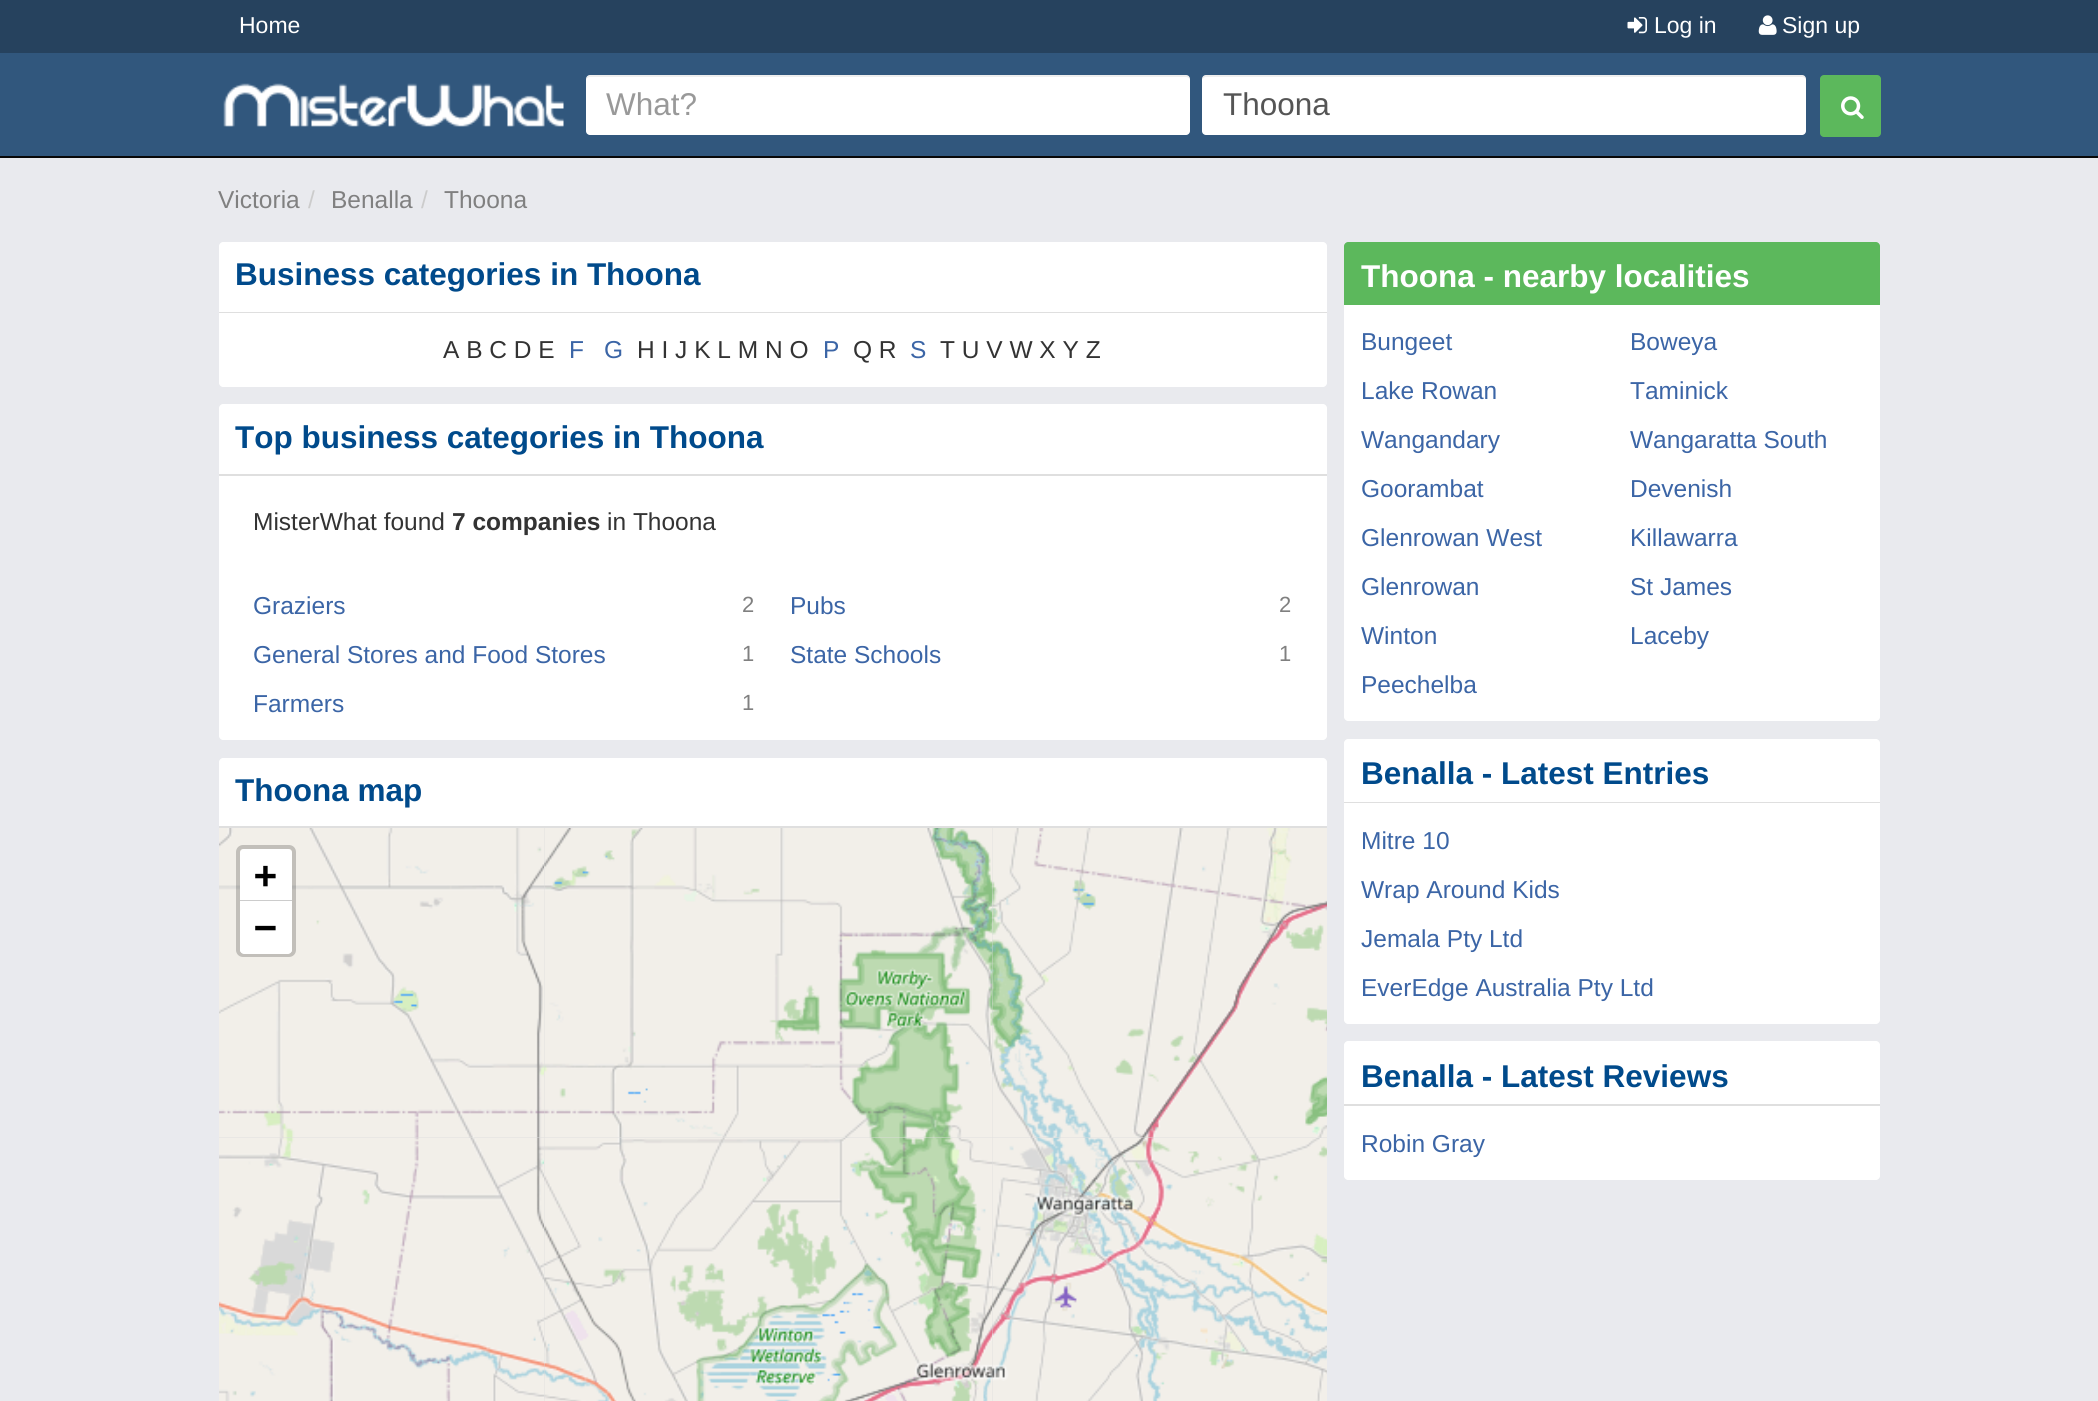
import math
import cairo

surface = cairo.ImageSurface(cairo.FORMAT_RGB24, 2098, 1401)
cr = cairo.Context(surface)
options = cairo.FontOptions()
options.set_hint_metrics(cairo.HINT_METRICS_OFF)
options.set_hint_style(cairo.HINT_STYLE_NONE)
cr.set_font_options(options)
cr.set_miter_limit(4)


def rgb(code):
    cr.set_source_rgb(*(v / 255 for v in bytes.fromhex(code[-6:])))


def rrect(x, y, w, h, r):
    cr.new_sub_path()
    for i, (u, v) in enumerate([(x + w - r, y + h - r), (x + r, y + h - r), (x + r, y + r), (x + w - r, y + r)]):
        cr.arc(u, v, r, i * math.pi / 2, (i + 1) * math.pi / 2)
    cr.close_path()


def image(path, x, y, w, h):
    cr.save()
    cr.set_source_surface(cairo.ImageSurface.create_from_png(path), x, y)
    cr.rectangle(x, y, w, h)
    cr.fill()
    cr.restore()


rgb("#e9eaee")
cr.paint()
for x, y, w, h, color in [
    (0, 53, 2098, 103, "#31577d"),
    (0, 156, 2098, 2, "#080808"),
    (0, 0, 2098, 53, "#26425e"),
]:
    rgb(color)
    cr.rectangle(x, y, w, h)
    cr.fill()
image("img/1.png", 1627, 17, 20, 17)
image("img/2.png", 1758, 15, 19, 20)
image("img/3.png", 223, 83, 341, 44)
rgb("#ffffff")
rrect(586, 75, 604, 60, 4)
cr.fill()
cr.set_source_rgba(0, 0, 0, 0.07)
cr.new_path()
cr.move_to(590, 77)
cr.line_to(1186, 77)
cr.curve_to(1188, 77, 1190, 79, 1190, 80)
cr.line_to(1190, 79)
cr.curve_to(1190, 77, 1188, 75, 1186, 75)
cr.line_to(590, 75)
cr.curve_to(588, 75, 586, 77, 586, 79)
cr.line_to(586, 80)
cr.curve_to(586, 79, 588, 77, 590, 77)
cr.close_path()
cr.fill()
rgb("#ffffff")
rrect(1202, 75, 604, 60, 4)
cr.fill()
cr.set_source_rgba(0, 0, 0, 0.07)
cr.new_path()
cr.move_to(1206, 77)
cr.line_to(1802, 77)
cr.curve_to(1804, 77, 1806, 79, 1806, 80)
cr.line_to(1806, 79)
cr.curve_to(1806, 77, 1804, 75, 1802, 75)
cr.line_to(1206, 75)
cr.curve_to(1204, 75, 1202, 77, 1202, 79)
cr.line_to(1202, 80)
cr.curve_to(1202, 79, 1204, 77, 1206, 77)
cr.close_path()
cr.fill()
rgb("#5cb85c")
rrect(1820, 75, 61, 62, 4)
cr.fill()
image("img/4.png", 1841, 96, 23, 23)
rgb("#ffffff")
cr.new_path()
cr.move_to(223, 242)
cr.line_to(1323, 242)
cr.curve_to(1325, 242, 1327, 244, 1327, 246)
cr.line_to(1327, 313)
cr.line_to(219, 313)
cr.line_to(219, 246)
cr.curve_to(219, 244, 221, 242, 223, 242)
cr.close_path()
cr.fill()
rgb("#dfdfdf")
cr.rectangle(219, 312, 1108, 1)
cr.fill()
rgb("#ffffff")
cr.new_path()
cr.move_to(219, 313)
cr.line_to(1327, 313)
cr.line_to(1327, 383)
cr.curve_to(1327, 385, 1325, 387, 1323, 387)
cr.line_to(223, 387)
cr.curve_to(221, 387, 219, 385, 219, 383)
cr.close_path()
cr.fill()
cr.new_path()
cr.move_to(223, 404)
cr.line_to(1323, 404)
cr.curve_to(1325, 404, 1327, 406, 1327, 408)
cr.line_to(1327, 476)
cr.line_to(219, 476)
cr.line_to(219, 408)
cr.curve_to(219, 406, 221, 404, 223, 404)
cr.close_path()
cr.fill()
rgb("#dfdfdf")
cr.rectangle(219, 474, 1108, 2)
cr.fill()
rgb("#ffffff")
cr.new_path()
cr.move_to(219, 476)
cr.line_to(1327, 476)
cr.line_to(1327, 736)
cr.curve_to(1327, 738, 1325, 740, 1323, 740)
cr.line_to(223, 740)
cr.curve_to(221, 740, 219, 738, 219, 736)
cr.close_path()
cr.fill()
cr.new_path()
cr.move_to(223, 758)
cr.line_to(1323, 758)
cr.curve_to(1325, 758, 1327, 760, 1327, 762)
cr.line_to(1327, 828)
cr.line_to(219, 828)
cr.line_to(219, 762)
cr.curve_to(219, 760, 221, 758, 223, 758)
cr.close_path()
cr.fill()
rgb("#dfdfdf")
cr.rectangle(219, 826, 1108, 2)
cr.fill()
rgb("#dddddd")
cr.rectangle(219, 828, 1108, 573)
cr.fill()
image("img/5.png", 219, 828, 325, 310)
image("img/6.png", 544, 828, 448, 310)
image("img/7.png", 991, 828, 336, 310)
image("img/8.png", 219, 1138, 325, 263)
image("img/9.png", 544, 1138, 448, 263)
image("img/10.png", 991, 1138, 336, 263)
rrect(238, 847, 56, 108, 5)
cr.set_source_rgba(0, 0, 0, 0.2)
cr.set_line_width(4)
cr.stroke()
rgb("#ffffff")
cr.new_path()
cr.move_to(244, 849)
cr.line_to(288, 849)
cr.curve_to(290, 849, 292, 851, 292, 853)
cr.line_to(292, 901)
cr.line_to(240, 901)
cr.line_to(240, 853)
cr.curve_to(240, 851, 242, 849, 244, 849)
cr.close_path()
cr.fill()
rgb("#cccccc")
cr.rectangle(240, 900, 52, 1)
cr.fill()
rgb("#ffffff")
cr.new_path()
cr.move_to(240, 901)
cr.line_to(292, 901)
cr.line_to(292, 950)
cr.curve_to(292, 952, 290, 954, 288, 954)
cr.line_to(244, 954)
cr.curve_to(242, 954, 240, 952, 240, 950)
cr.close_path()
cr.fill()
rgb("#5cb85c")
cr.new_path()
cr.move_to(1348, 242)
cr.line_to(1876, 242)
cr.curve_to(1878, 242, 1880, 244, 1880, 246)
cr.line_to(1880, 305)
cr.line_to(1344, 305)
cr.line_to(1344, 246)
cr.curve_to(1344, 244, 1346, 242, 1348, 242)
cr.close_path()
cr.fill()
rgb("#ffffff")
cr.new_path()
cr.move_to(1344, 305)
cr.line_to(1880, 305)
cr.line_to(1880, 717)
cr.curve_to(1880, 719, 1878, 721, 1876, 721)
cr.line_to(1348, 721)
cr.curve_to(1346, 721, 1344, 719, 1344, 717)
cr.close_path()
cr.fill()
cr.new_path()
cr.move_to(1348, 739)
cr.line_to(1876, 739)
cr.curve_to(1878, 739, 1880, 741, 1880, 743)
cr.line_to(1880, 803)
cr.line_to(1344, 803)
cr.line_to(1344, 743)
cr.curve_to(1344, 741, 1346, 739, 1348, 739)
cr.close_path()
cr.fill()
rgb("#dfdfdf")
cr.rectangle(1344, 802, 536, 1)
cr.fill()
rgb("#ffffff")
cr.new_path()
cr.move_to(1344, 803)
cr.line_to(1880, 803)
cr.line_to(1880, 1020)
cr.curve_to(1880, 1022, 1878, 1024, 1876, 1024)
cr.line_to(1348, 1024)
cr.curve_to(1346, 1024, 1344, 1022, 1344, 1020)
cr.close_path()
cr.fill()
cr.new_path()
cr.move_to(1348, 1041)
cr.line_to(1876, 1041)
cr.curve_to(1878, 1041, 1880, 1043, 1880, 1045)
cr.line_to(1880, 1106)
cr.line_to(1344, 1106)
cr.line_to(1344, 1045)
cr.curve_to(1344, 1043, 1346, 1041, 1348, 1041)
cr.close_path()
cr.fill()
rgb("#dfdfdf")
cr.rectangle(1344, 1104, 536, 2)
cr.fill()
rgb("#ffffff")
cr.new_path()
cr.move_to(1344, 1106)
cr.line_to(1880, 1106)
cr.line_to(1880, 1176)
cr.curve_to(1880, 1178, 1878, 1180, 1876, 1180)
cr.line_to(1348, 1180)
cr.curve_to(1346, 1180, 1344, 1178, 1344, 1176)
cr.close_path()
cr.fill()
cr.select_font_face("Liberation Sans")
cr.set_font_size(23)
for x, y, s in [
    (239, 33, "Home"),
    (1654, 33, "Log in"),
    (1782, 33, "Sign up"),
]:
    cr.move_to(x, y)
    cr.show_text(s)
cr.set_font_size(31.5)
rgb("#999999")
cr.move_to(606, 115)
cr.show_text("What?")
rgb("#555555")
cr.move_to(1223, 115)
cr.show_text("Thoona")
cr.set_font_size(24.5)
rgb("#808080")
cr.move_to(218, 208)
cr.show_text("Victoria")
rgb("#cccccc")
cr.move_to(308, 208)
cr.show_text("/")
rgb("#808080")
cr.move_to(331, 208)
cr.show_text("Benalla")
rgb("#cccccc")
cr.move_to(421, 208)
cr.show_text("/")
rgb("#808080")
cr.move_to(444, 208)
cr.show_text("Thoona")
cr.select_font_face("Liberation Sans", cairo.FONT_SLANT_NORMAL, cairo.FONT_WEIGHT_BOLD)
cr.set_font_size(31.5)
rgb("#004a8b")
cr.move_to(235, 285)
cr.show_text("Business categories in Thoona")
cr.select_font_face("Liberation Sans")
cr.set_font_size(24.5)
rgb("#333333")
cr.move_to(443, 358)
cr.show_text("A B C D E")
rgb("#3b65a6")
cr.move_to(569, 358)
cr.show_text("F")
cr.move_to(604, 358)
cr.show_text("G")
rgb("#333333")
cr.move_to(637, 358)
cr.show_text("H I J K L M N O")
rgb("#3b65a6")
cr.move_to(823, 358)
cr.show_text("P")
rgb("#333333")
cr.move_to(853, 358)
cr.show_text("Q R")
rgb("#3b65a6")
cr.move_to(910, 358)
cr.show_text("S")
rgb("#333333")
cr.move_to(940, 358)
cr.show_text("T U V W X Y Z")
cr.select_font_face("Liberation Sans", cairo.FONT_SLANT_NORMAL, cairo.FONT_WEIGHT_BOLD)
cr.set_font_size(31.5)
rgb("#004a8b")
cr.move_to(235, 448)
cr.show_text("Top business categories in Thoona")
cr.select_font_face("Liberation Sans")
cr.set_font_size(24.5)
rgb("#333333")
cr.move_to(253, 530)
cr.show_text("MisterWhat found")
cr.select_font_face("Liberation Sans", cairo.FONT_SLANT_NORMAL, cairo.FONT_WEIGHT_BOLD)
cr.move_to(452, 530)
cr.show_text("7 companies")
cr.select_font_face("Liberation Sans")
cr.move_to(607, 530)
cr.show_text("in Thoona")
rgb("#3b65a6")
cr.move_to(253, 614)
cr.show_text("Graziers")
cr.set_font_size(22)
rgb("#808080")
cr.move_to(742, 612)
cr.show_text("2")
cr.set_font_size(24.5)
rgb("#3b65a6")
cr.move_to(790, 614)
cr.show_text("Pubs")
cr.set_font_size(22)
rgb("#808080")
cr.move_to(1279, 612)
cr.show_text("2")
cr.set_font_size(24.5)
rgb("#3b65a6")
cr.move_to(253, 663)
cr.show_text("General Stores and Food Stores")
cr.set_font_size(22)
rgb("#808080")
cr.move_to(742, 661)
cr.show_text("1")
cr.set_font_size(24.5)
rgb("#3b65a6")
cr.move_to(790, 663)
cr.show_text("State Schools")
cr.set_font_size(22)
rgb("#808080")
cr.move_to(1279, 661)
cr.show_text("1")
cr.set_font_size(24.5)
rgb("#3b65a6")
cr.move_to(253, 712)
cr.show_text("Farmers")
cr.set_font_size(22)
rgb("#808080")
cr.move_to(742, 710)
cr.show_text("1")
cr.select_font_face("Liberation Sans", cairo.FONT_SLANT_NORMAL, cairo.FONT_WEIGHT_BOLD)
cr.set_font_size(31.5)
rgb("#004a8b")
cr.move_to(235, 801)
cr.show_text("Thoona map")
cr.select_font_face("DejaVu Sans Mono", cairo.FONT_SLANT_NORMAL, cairo.FONT_WEIGHT_BOLD)
cr.set_font_size(38)
rgb("#000000")
cr.move_to(254, 888)
cr.show_text("+")
cr.move_to(254, 940)
cr.show_text("−")
cr.select_font_face("Liberation Sans", cairo.FONT_SLANT_NORMAL, cairo.FONT_WEIGHT_BOLD)
cr.set_font_size(31.5)
rgb("#ffffff")
cr.move_to(1361, 287)
cr.show_text("Thoona - nearby localities")
cr.select_font_face("Liberation Sans")
cr.set_font_size(24.5)
rgb("#3b65a6")
for x, y, s in [
    (1361, 350, "Bungeet"),
    (1630, 350, "Boweya"),
    (1361, 399, "Lake Rowan"),
    (1630, 399, "Taminick"),
    (1361, 448, "Wangandary"),
    (1630, 448, "Wangaratta South"),
    (1361, 497, "Goorambat"),
    (1630, 497, "Devenish"),
    (1361, 546, "Glenrowan West"),
    (1630, 546, "Killawarra"),
    (1361, 595, "Glenrowan"),
    (1630, 595, "St James"),
    (1361, 644, "Winton"),
    (1630, 644, "Laceby"),
    (1361, 693, "Peechelba"),
]:
    cr.move_to(x, y)
    cr.show_text(s)
cr.select_font_face("Liberation Sans", cairo.FONT_SLANT_NORMAL, cairo.FONT_WEIGHT_BOLD)
cr.set_font_size(31.5)
rgb("#004a8b")
cr.move_to(1361, 784)
cr.show_text("Benalla - Latest Entries")
cr.select_font_face("Liberation Sans")
cr.set_font_size(24.5)
rgb("#3b65a6")
for x, y, s in [
    (1361, 849, "Mitre 10"),
    (1361, 898, "Wrap Around Kids"),
    (1361, 947, "Jemala Pty Ltd"),
    (1361, 996, "EverEdge Australia Pty Ltd"),
]:
    cr.move_to(x, y)
    cr.show_text(s)
cr.select_font_face("Liberation Sans", cairo.FONT_SLANT_NORMAL, cairo.FONT_WEIGHT_BOLD)
cr.set_font_size(31.5)
rgb("#004a8b")
cr.move_to(1361, 1087)
cr.show_text("Benalla - Latest Reviews")
cr.select_font_face("Liberation Sans")
cr.set_font_size(24.5)
rgb("#3b65a6")
cr.move_to(1361, 1152)
cr.show_text("Robin Gray")
surface.write_to_png("page.png")
